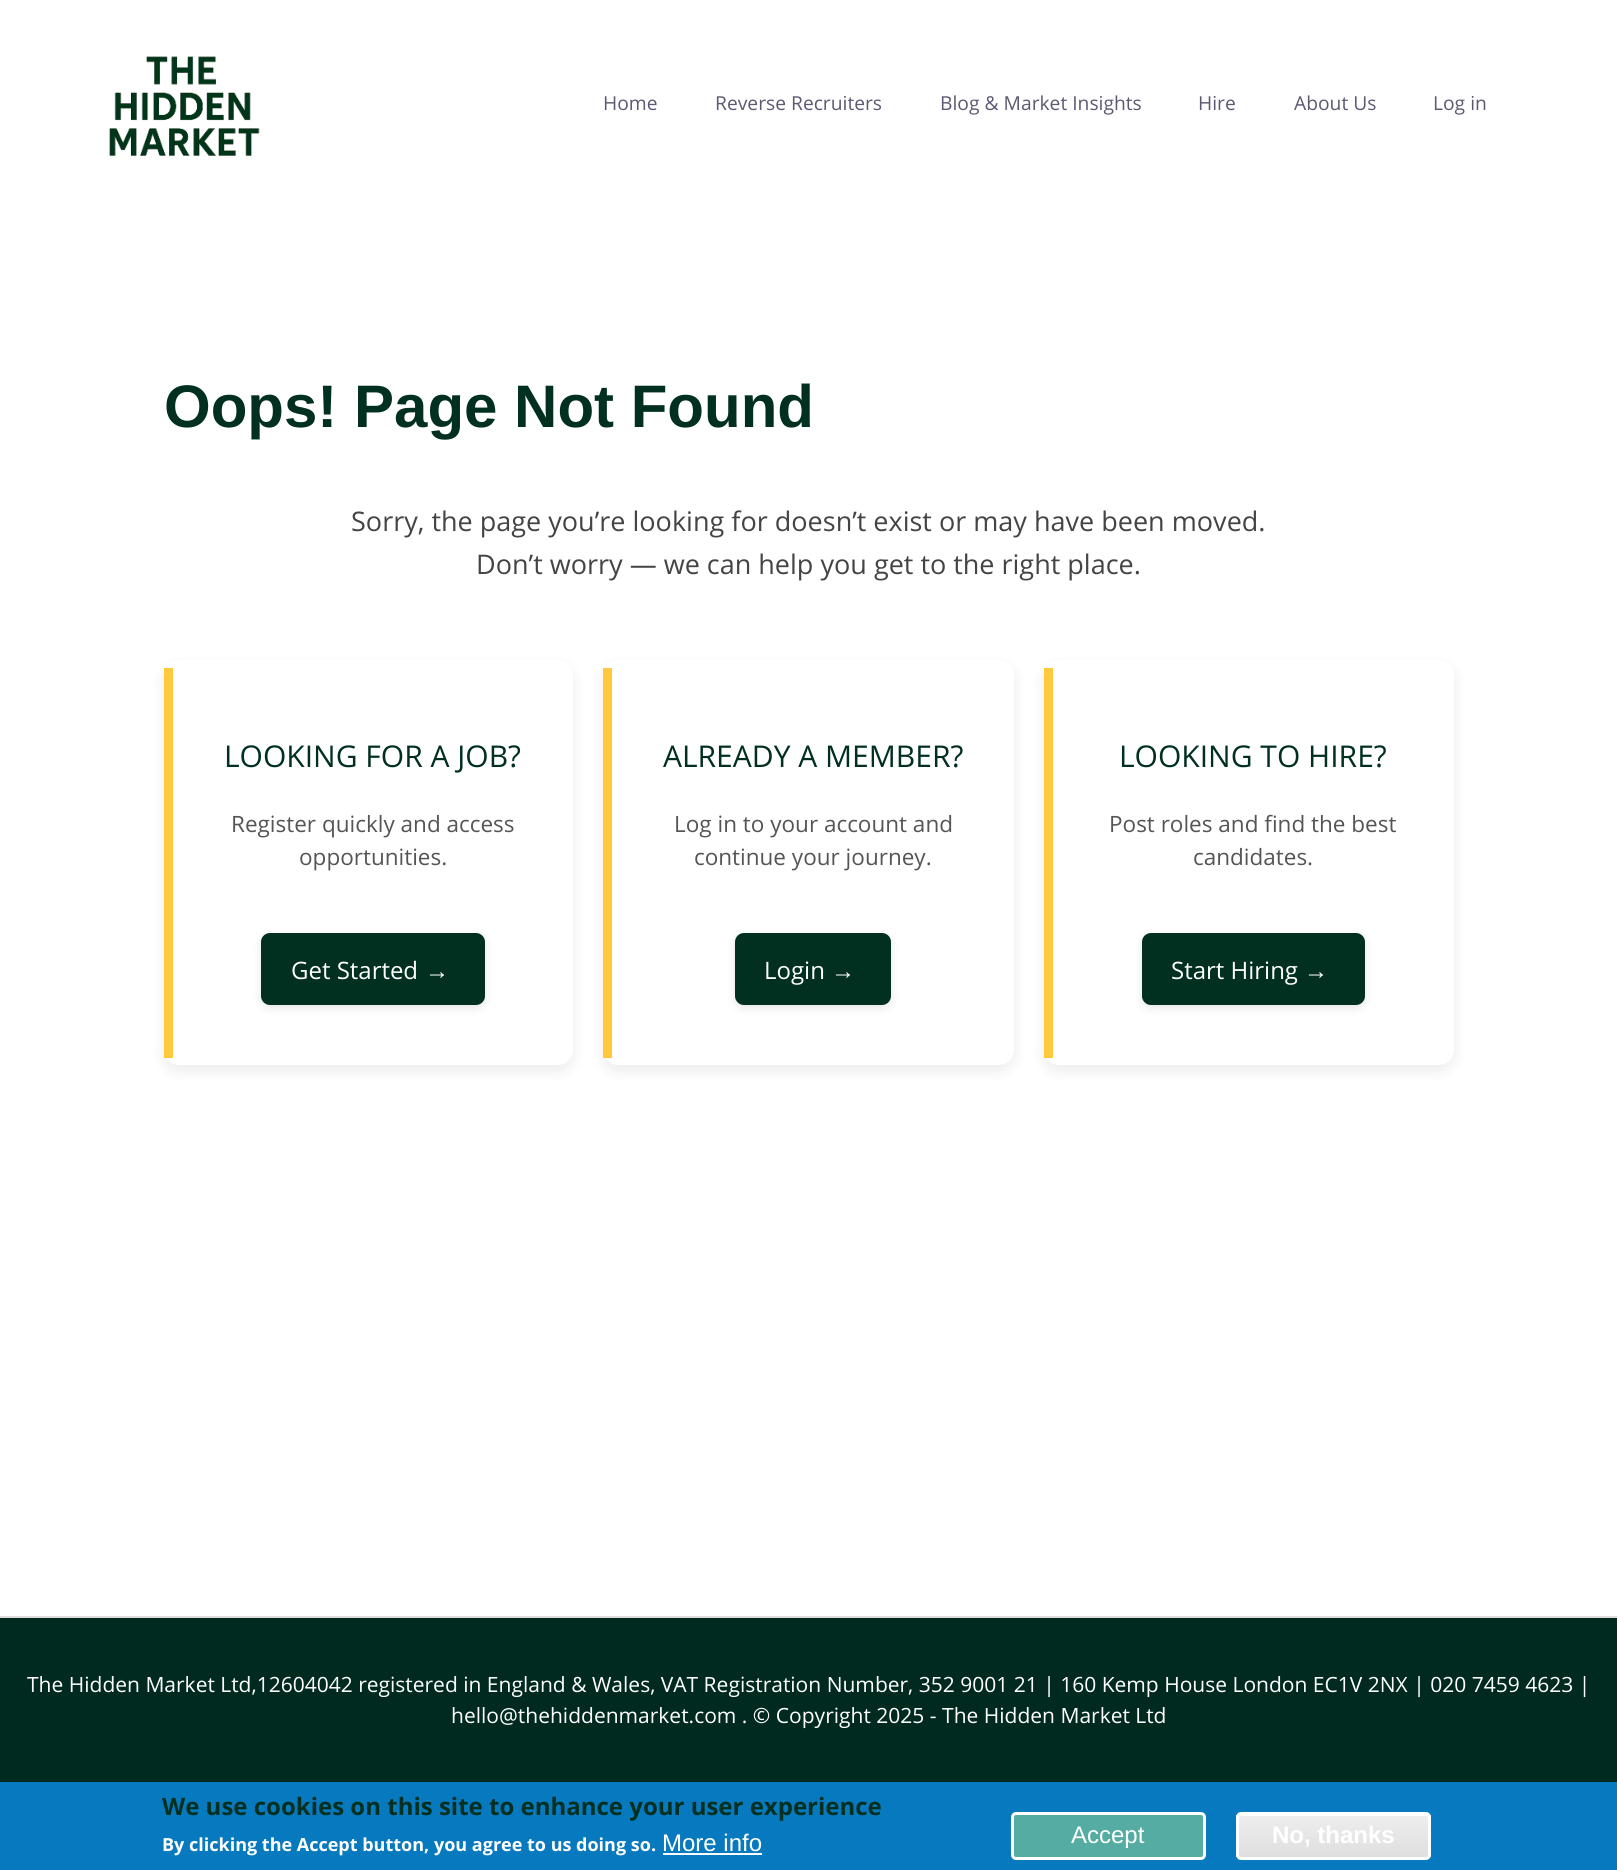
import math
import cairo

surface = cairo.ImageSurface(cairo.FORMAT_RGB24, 1617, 1870)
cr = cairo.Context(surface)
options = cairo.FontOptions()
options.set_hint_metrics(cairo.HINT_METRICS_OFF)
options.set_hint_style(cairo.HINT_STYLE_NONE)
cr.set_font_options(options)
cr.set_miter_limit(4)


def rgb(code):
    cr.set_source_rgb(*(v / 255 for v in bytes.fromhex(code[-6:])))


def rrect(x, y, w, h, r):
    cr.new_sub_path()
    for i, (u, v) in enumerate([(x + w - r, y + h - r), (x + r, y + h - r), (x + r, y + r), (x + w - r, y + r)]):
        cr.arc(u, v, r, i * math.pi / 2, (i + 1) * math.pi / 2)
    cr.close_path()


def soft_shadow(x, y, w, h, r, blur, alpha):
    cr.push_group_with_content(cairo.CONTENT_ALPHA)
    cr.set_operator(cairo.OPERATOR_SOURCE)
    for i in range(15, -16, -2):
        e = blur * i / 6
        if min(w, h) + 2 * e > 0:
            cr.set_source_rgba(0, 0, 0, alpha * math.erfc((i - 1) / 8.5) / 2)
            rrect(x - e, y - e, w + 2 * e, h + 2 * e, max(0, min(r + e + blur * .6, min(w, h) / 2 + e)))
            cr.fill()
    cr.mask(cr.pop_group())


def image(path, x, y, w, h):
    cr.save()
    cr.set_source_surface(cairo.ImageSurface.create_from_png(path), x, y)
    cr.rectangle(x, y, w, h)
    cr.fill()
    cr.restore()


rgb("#ffffff")
cr.paint()
image("img/1.png", 109, 56, 151, 100)
rgb("#000000")
soft_shadow(164, 666, 409, 405, 15, 7.5, 0.08)
rgb("#ffffff")
rrect(164, 660, 409, 405, 15)
cr.fill()
rgb("#ffc83d")
cr.rectangle(164, 668, 9, 390)
cr.fill()
rgb("#000000")
soft_shadow(261, 936, 224, 72, 9, 4.5, 0.1)
rgb("#023020")
rrect(261, 933, 224, 72, 9)
cr.fill()
rgb("#000000")
soft_shadow(603, 666, 411, 405, 15, 7.5, 0.08)
rgb("#ffffff")
rrect(603, 660, 411, 405, 15)
cr.fill()
rgb("#ffc83d")
cr.rectangle(603, 668, 9, 390)
cr.fill()
rgb("#000000")
soft_shadow(735, 936, 156, 72, 9, 4.5, 0.1)
rgb("#023020")
rrect(735, 933, 156, 72, 9)
cr.fill()
rgb("#000000")
soft_shadow(1044, 666, 410, 405, 15, 7.5, 0.08)
rgb("#ffffff")
rrect(1044, 660, 410, 405, 15)
cr.fill()
rgb("#ffc83d")
cr.rectangle(1044, 668, 9, 390)
cr.fill()
rgb("#000000")
soft_shadow(1142, 936, 223, 72, 9, 4.5, 0.1)
rgb("#023020")
rrect(1142, 933, 223, 72, 9)
cr.fill()
for x, y, w, h, color in [
    (0, 1618, 1617, 164, "#002a1f"),
    (0, 1616, 1617, 2, "#dddddd"),
    (0, 1782, 1617, 88, "#0779bf"),
    (663, 1853, 99, 2, "#ffffff"),
]:
    rgb(color)
    cr.rectangle(x, y, w, h)
    cr.fill()
rgb("#55aca2")
rrect(1012.5, 1813.5, 192, 45, 3.5)
cr.fill_preserve()
rgb("#ffffff")
cr.set_line_width(3)
cr.stroke()
cr.save()
rrect(1236, 1812, 195, 48, 5)
cr.clip()
gradient = cairo.LinearGradient(1334, 1815, 1334, 1857)
gradient.add_color_stop_rgba(0.05, 0.929, 0.929, 0.929, 1)
gradient.add_color_stop_rgba(1, 0.875, 0.875, 0.875, 1)
cr.set_source(gradient)
cr.rectangle(1236, 1815, 195, 42)
cr.fill()
cr.restore()
cr.new_path()
cr.move_to(1240, 1816)
cr.line_to(1426, 1816)
cr.line_to(1428, 1817)
cr.line_to(1428, 1818)
cr.line_to(1428, 1816)
cr.curve_to(1428, 1816, 1427, 1815, 1426, 1815)
cr.line_to(1240, 1815)
cr.curve_to(1240, 1815, 1239, 1816, 1239, 1816)
cr.line_to(1239, 1818)
cr.close_path()
cr.fill()
rrect(1237.5, 1813.5, 192, 45, 3.5)
cr.stroke()
cr.select_font_face("Open Sans")
cr.set_font_size(19.25)
rgb("#5c5973")
for x, y, s in [
    (603, 110, "Home"),
    (715, 110, "Reverse Recruiters"),
    (940, 110, "Blog & Market Insights"),
    (1198, 110, "Hire"),
    (1294, 110, "About Us"),
    (1433, 110, "Log in"),
]:
    cr.move_to(x, y)
    cr.show_text(s)
cr.select_font_face("Liberation Sans", cairo.FONT_SLANT_NORMAL, cairo.FONT_WEIGHT_BOLD)
cr.set_font_size(60)
rgb("#023020")
cr.move_to(164, 427)
cr.show_text("Oops! Page Not Found")
cr.select_font_face("Open Sans")
cr.set_font_size(27)
rgb("#444444")
cr.move_to(351, 531)
cr.show_text("Sorry, the page you’re looking for doesn’t exist or may have been moved.")
cr.move_to(476, 574)
cr.show_text("Don’t worry — we can help you get to the right place.")
cr.set_font_size(30)
rgb("#023020")
cr.move_to(224, 767)
cr.show_text("LOOKING FOR A JOB?")
cr.set_font_size(22.5)
rgb("#555555")
cr.move_to(231, 832)
cr.show_text("Register quickly and access")
cr.move_to(299, 865)
cr.show_text("opportunities.")
cr.set_font_size(24)
rgb("#ffffff")
cr.move_to(291, 979)
cr.show_text("Get Started")
cr.select_font_face("Liberation Sans")
cr.move_to(425, 979)
cr.show_text("→")
cr.select_font_face("Open Sans")
cr.set_font_size(30)
rgb("#023020")
cr.move_to(663, 767)
cr.show_text("ALREADY A MEMBER?")
cr.set_font_size(22.5)
rgb("#555555")
cr.move_to(674, 832)
cr.show_text("Log in to your account and")
cr.move_to(694, 865)
cr.show_text("continue your journey.")
cr.set_font_size(24)
rgb("#ffffff")
cr.move_to(764, 979)
cr.show_text("Login")
cr.select_font_face("Liberation Sans")
cr.move_to(831, 979)
cr.show_text("→")
cr.select_font_face("Open Sans")
cr.set_font_size(30)
rgb("#023020")
cr.move_to(1119, 767)
cr.show_text("LOOKING TO HIRE?")
cr.set_font_size(22.5)
rgb("#555555")
cr.move_to(1109, 832)
cr.show_text("Post roles and find the best")
cr.move_to(1193, 865)
cr.show_text("candidates.")
cr.set_font_size(24)
rgb("#ffffff")
cr.move_to(1171, 979)
cr.show_text("Start Hiring")
cr.select_font_face("Liberation Sans")
cr.move_to(1304, 979)
cr.show_text("→")
cr.select_font_face("Open Sans")
cr.set_font_size(21)
cr.move_to(27, 1692)
cr.show_text("The Hidden Market Ltd,12604042 registered in England & Wales, VAT Registration Number, 352 9001 21 | 160 Kemp House London EC1V 2NX | 020 7459 4623 |")
cr.move_to(451, 1723)
cr.show_text("hello@thehiddenmarket.com . © Copyright 2025 - The Hidden Market Ltd")
cr.select_font_face("Open Sans", cairo.FONT_SLANT_NORMAL, cairo.FONT_WEIGHT_BOLD)
cr.set_font_size(24)
rgb("#023020")
cr.move_to(162, 1815)
cr.show_text("We use cookies on this site to enhance your user experience")
cr.set_font_size(18)
rgb("#ffffff")
cr.move_to(162, 1851)
cr.show_text("By clicking the Accept button, you agree to us doing so.")
cr.select_font_face("Liberation Sans")
cr.set_font_size(24)
cr.move_to(662, 1851)
cr.show_text("More info")
cr.move_to(1071, 1843)
cr.show_text("Accept")
cr.select_font_face("Liberation Sans", cairo.FONT_SLANT_NORMAL, cairo.FONT_WEIGHT_BOLD)
cr.move_to(1272, 1843)
cr.show_text("No, thanks")
surface.write_to_png("page.png")
